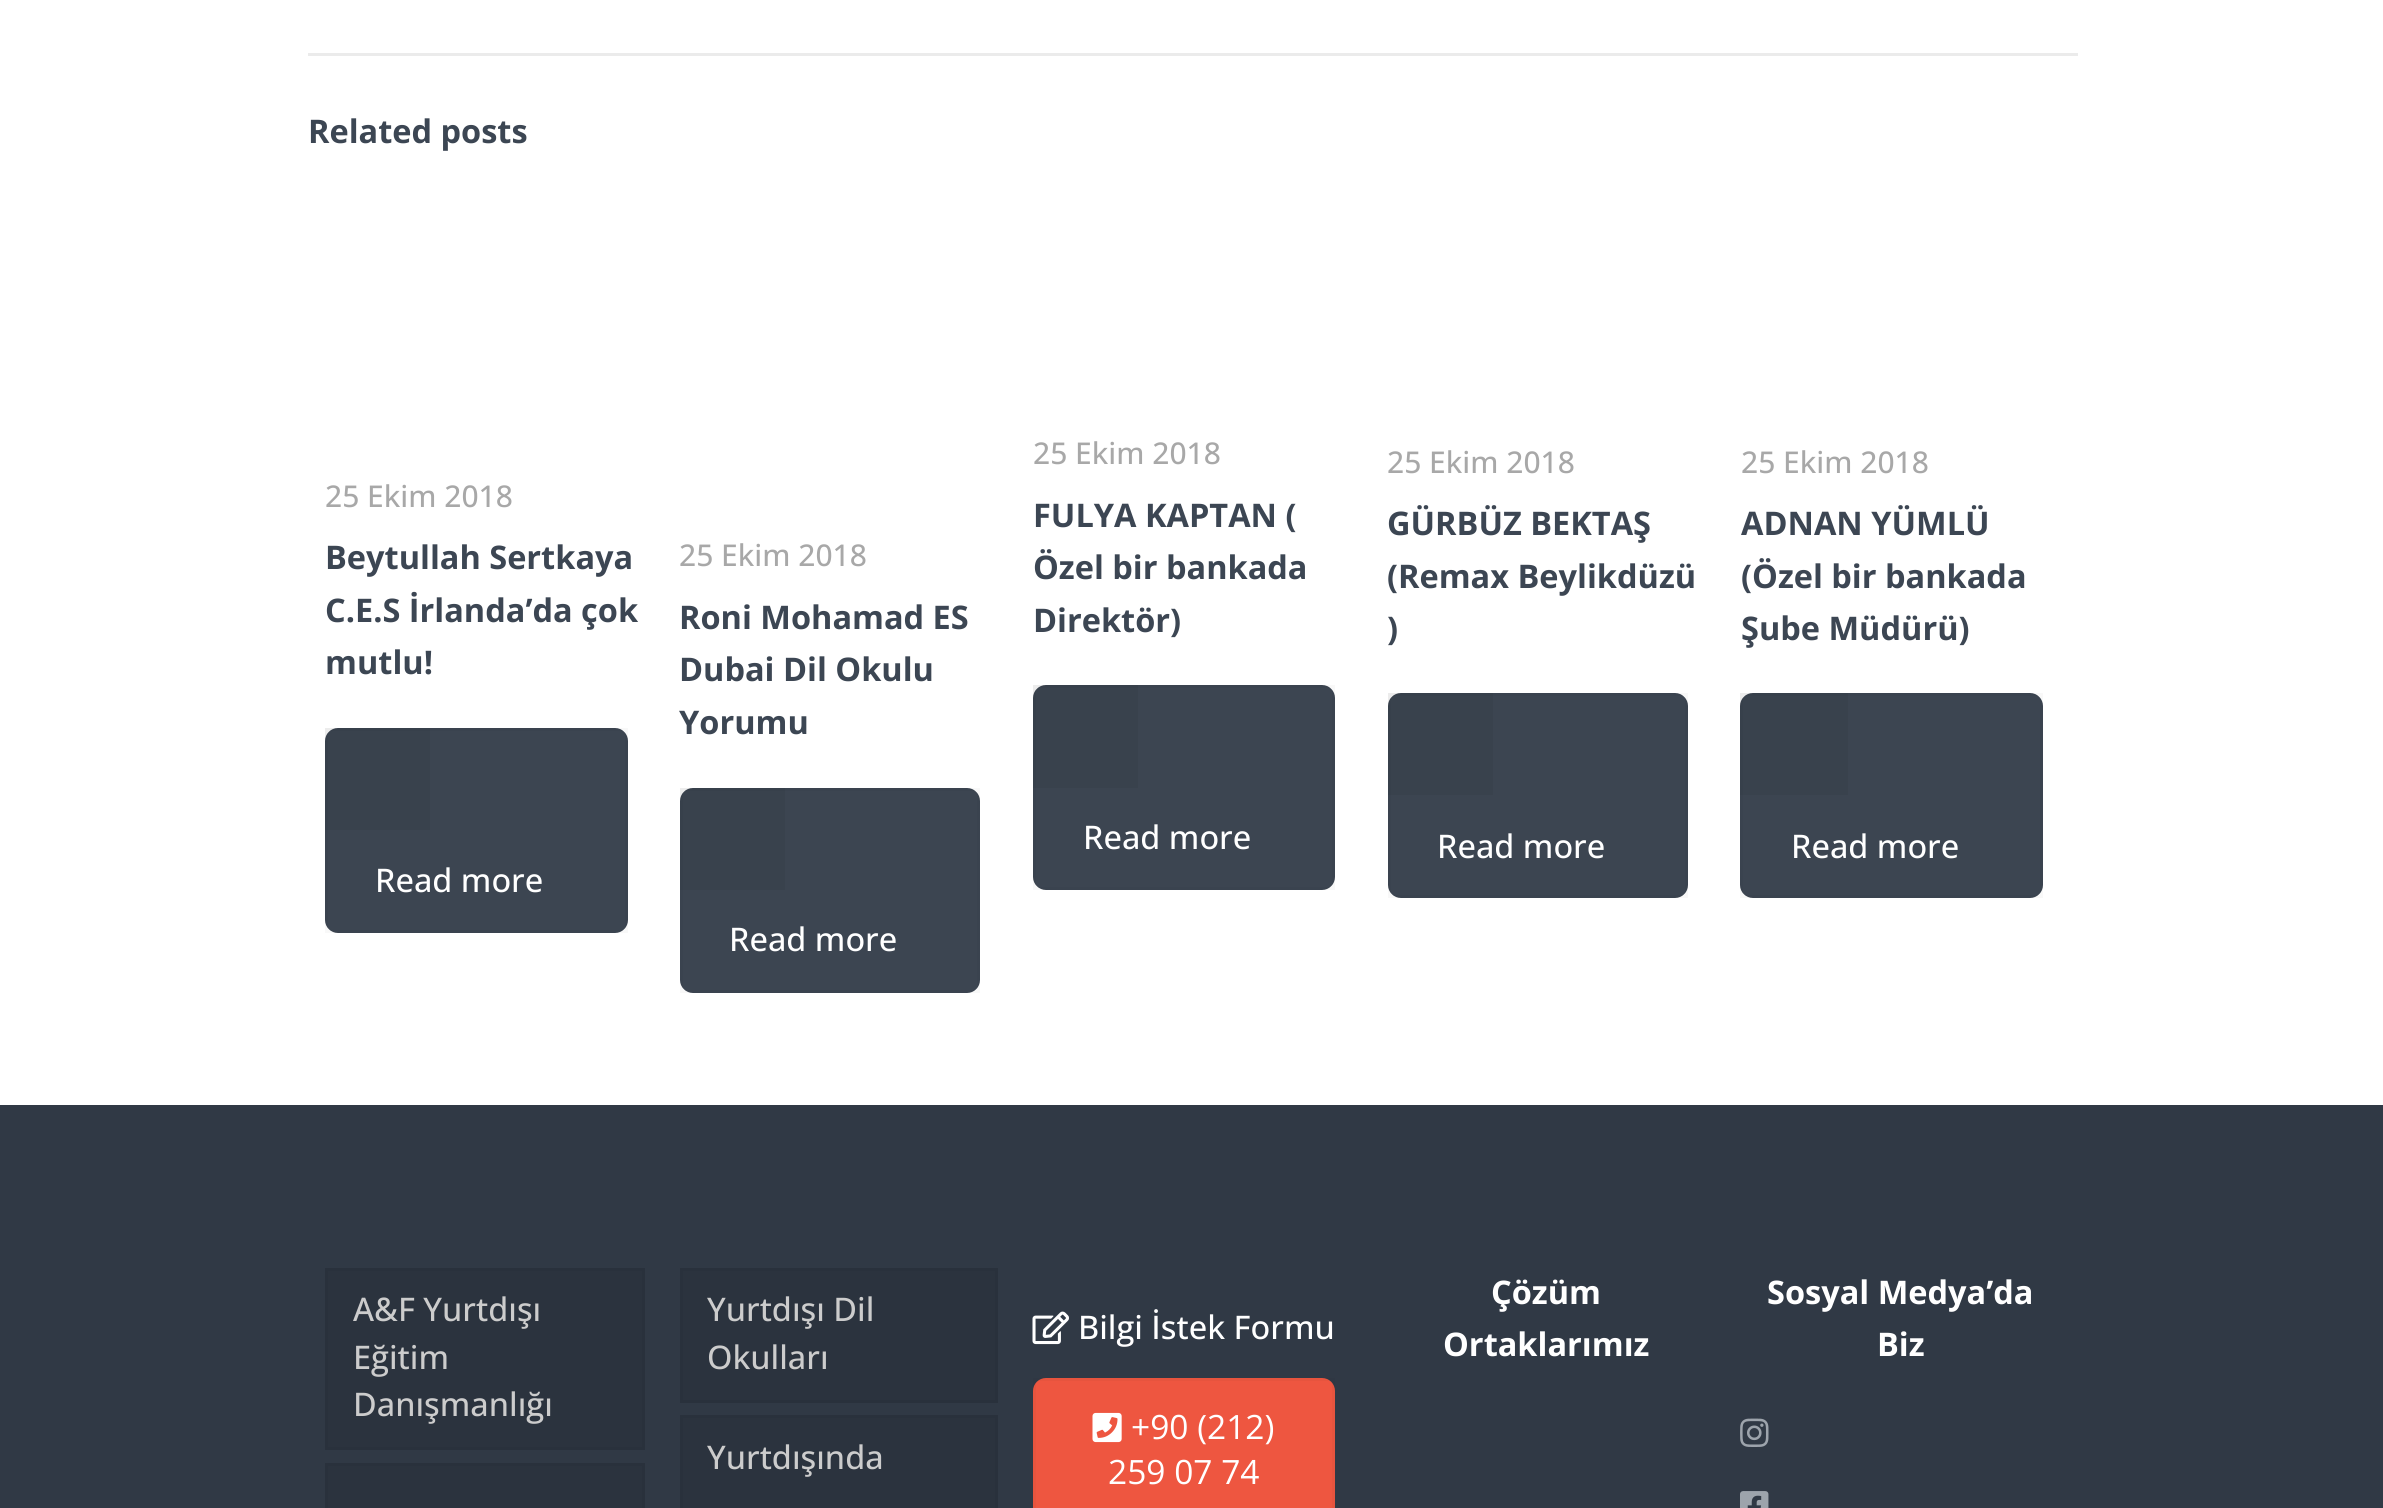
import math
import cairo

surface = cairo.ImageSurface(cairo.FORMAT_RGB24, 2383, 1508)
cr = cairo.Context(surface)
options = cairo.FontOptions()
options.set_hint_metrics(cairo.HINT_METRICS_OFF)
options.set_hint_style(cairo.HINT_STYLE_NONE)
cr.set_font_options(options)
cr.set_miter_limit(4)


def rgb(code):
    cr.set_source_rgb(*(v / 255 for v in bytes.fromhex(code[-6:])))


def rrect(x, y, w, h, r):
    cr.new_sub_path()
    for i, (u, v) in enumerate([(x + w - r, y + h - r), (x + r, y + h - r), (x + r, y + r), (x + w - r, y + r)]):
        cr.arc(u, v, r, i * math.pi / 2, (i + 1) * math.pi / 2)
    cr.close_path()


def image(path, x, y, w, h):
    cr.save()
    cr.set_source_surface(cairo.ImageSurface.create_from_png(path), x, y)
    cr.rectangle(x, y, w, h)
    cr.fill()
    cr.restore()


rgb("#ffffff")
cr.paint()
rgb("#ebebeb")
cr.rectangle(308, 53, 1770, 3)
cr.fill()
rgb("#3c4551")
rrect(325, 728, 303, 205, 13)
cr.fill()
cr.rectangle(326.5, 729.5, 300, 202)
cr.set_source_rgba(0, 0, 0, 0.03)
cr.set_line_width(3)
cr.stroke()
cr.set_source_rgba(0, 0, 0, 0.05)
cr.rectangle(325, 728, 105, 102)
cr.fill()
rgb("#3c4551")
rrect(680, 788, 300, 205, 13)
cr.fill()
cr.rectangle(681.5, 789.5, 297, 202)
cr.set_source_rgba(0, 0, 0, 0.03)
cr.stroke()
cr.set_source_rgba(0, 0, 0, 0.05)
cr.rectangle(680, 788, 105, 102)
cr.fill()
rgb("#3c4551")
rrect(1033, 685, 302, 205, 13)
cr.fill()
cr.rectangle(1034.5, 686.5, 299, 202)
cr.set_source_rgba(0, 0, 0, 0.03)
cr.stroke()
cr.set_source_rgba(0, 0, 0, 0.05)
cr.rectangle(1033, 685, 105, 103)
cr.fill()
rgb("#3c4551")
rrect(1388, 693, 300, 205, 13)
cr.fill()
cr.rectangle(1389.5, 694.5, 297, 202)
cr.set_source_rgba(0, 0, 0, 0.03)
cr.stroke()
cr.set_source_rgba(0, 0, 0, 0.05)
cr.rectangle(1388, 693, 105, 102)
cr.fill()
rgb("#3c4551")
rrect(1740, 693, 303, 205, 13)
cr.fill()
cr.rectangle(1741.5, 694.5, 300, 202)
cr.set_source_rgba(0, 0, 0, 0.03)
cr.stroke()
cr.set_source_rgba(0, 0, 0, 0.05)
cr.rectangle(1740, 693, 108, 102)
cr.fill()
rgb("#303945")
cr.rectangle(0, 1105, 2383, 403)
cr.fill()
rgb("#2b333e")
cr.rectangle(326.5, 1269.5, 317, 179)
cr.fill_preserve()
rgb("#29313c")
cr.stroke()
rgb("#2b333e")
cr.rectangle(326.5, 1464.5, 317, 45)
cr.fill_preserve()
rgb("#29313c")
cr.stroke()
rgb("#2b333e")
cr.rectangle(681.5, 1269.5, 315, 132)
cr.fill_preserve()
rgb("#29313c")
cr.stroke()
rgb("#2b333e")
cr.rectangle(681.5, 1416.5, 315, 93)
cr.fill_preserve()
rgb("#29313c")
cr.stroke()
image("img/1.png", 1032, 1311, 37, 34)
rgb("#ee5640")
rrect(1033, 1378, 302, 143, 13)
cr.fill()
cr.rectangle(1034.5, 1379.5, 299, 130)
cr.set_source_rgba(0, 0, 0, 0.03)
cr.stroke()
image("img/2.png", 1092, 1412, 30, 31)
image("img/3.png", 1740, 1418, 29, 29)
image("img/4.png", 1740, 1491, 29, 17)
cr.select_font_face("Open Sans", cairo.FONT_SLANT_NORMAL, cairo.FONT_WEIGHT_BOLD)
cr.set_font_size(32.5)
rgb("#3c4653")
cr.move_to(308, 143)
cr.show_text("Related posts")
cr.select_font_face("Open Sans Medium")
cr.set_font_size(30)
rgb("#a8a8a8")
cr.move_to(325, 507)
cr.show_text("25 Ekim 2018")
cr.select_font_face("Open Sans", cairo.FONT_SLANT_NORMAL, cairo.FONT_WEIGHT_BOLD)
cr.set_font_size(32.5)
rgb("#3c4653")
for x, y, s in [
    (325, 569, "Beytullah Sertkaya"),
    (325, 622, "C.E.S İrlanda’da çok"),
    (325, 674, "mutlu!"),
]:
    cr.move_to(x, y)
    cr.show_text(s)
cr.select_font_face("Open Sans Medium")
rgb("#ffffff")
cr.move_to(375, 892)
cr.show_text("Read more")
cr.set_font_size(30)
rgb("#a8a8a8")
cr.move_to(679, 566)
cr.show_text("25 Ekim 2018")
cr.select_font_face("Open Sans", cairo.FONT_SLANT_NORMAL, cairo.FONT_WEIGHT_BOLD)
cr.set_font_size(32.5)
rgb("#3c4653")
for x, y, s in [
    (679, 629, "Roni Mohamad ES"),
    (679, 681, "Dubai Dil Okulu"),
    (679, 734, "Yorumu"),
]:
    cr.move_to(x, y)
    cr.show_text(s)
cr.select_font_face("Open Sans Medium")
rgb("#ffffff")
cr.move_to(729, 951)
cr.show_text("Read more")
cr.set_font_size(30)
rgb("#a8a8a8")
cr.move_to(1033, 464)
cr.show_text("25 Ekim 2018")
cr.select_font_face("Open Sans", cairo.FONT_SLANT_NORMAL, cairo.FONT_WEIGHT_BOLD)
cr.set_font_size(32.5)
rgb("#3c4653")
for x, y, s in [
    (1033, 527, "FULYA KAPTAN ("),
    (1033, 579, "Özel bir bankada"),
    (1033, 632, "Direktör)"),
]:
    cr.move_to(x, y)
    cr.show_text(s)
cr.select_font_face("Open Sans Medium")
rgb("#ffffff")
cr.move_to(1083, 849)
cr.show_text("Read more")
cr.set_font_size(30)
rgb("#a8a8a8")
cr.move_to(1387, 473)
cr.show_text("25 Ekim 2018")
cr.select_font_face("Open Sans", cairo.FONT_SLANT_NORMAL, cairo.FONT_WEIGHT_BOLD)
cr.set_font_size(32.5)
rgb("#3c4653")
for x, y, s in [
    (1387, 535, "GÜRBÜZ BEKTAŞ"),
    (1387, 588, "(Remax Beylikdüzü"),
    (1387, 640, ")"),
]:
    cr.move_to(x, y)
    cr.show_text(s)
cr.select_font_face("Open Sans Medium")
rgb("#ffffff")
cr.move_to(1437, 858)
cr.show_text("Read more")
cr.set_font_size(30)
rgb("#a8a8a8")
cr.move_to(1741, 473)
cr.show_text("25 Ekim 2018")
cr.select_font_face("Open Sans", cairo.FONT_SLANT_NORMAL, cairo.FONT_WEIGHT_BOLD)
cr.set_font_size(32.5)
rgb("#3c4653")
for x, y, s in [
    (1741, 535, "ADNAN YÜMLÜ"),
    (1741, 588, "(Özel bir bankada"),
    (1741, 640, "Şube Müdürü)"),
]:
    cr.move_to(x, y)
    cr.show_text(s)
cr.select_font_face("Open Sans Medium")
rgb("#ffffff")
cr.move_to(1791, 858)
cr.show_text("Read more")
rgb("#cccccc")
for x, y, s in [
    (353, 1321, "A&F Yurtdışı"),
    (353, 1369, "Eğitim"),
    (353, 1416, "Danışmanlığı"),
    (707, 1321, "Yurtdışı Dil"),
    (707, 1369, "Okulları"),
    (707, 1469, "Yurtdışında"),
]:
    cr.move_to(x, y)
    cr.show_text(s)
rgb("#ffffff")
cr.move_to(1078, 1339)
cr.show_text("Bilgi İstek Formu")
cr.select_font_face("Open Sans")
cr.set_font_size(33.5)
cr.move_to(1131, 1439)
cr.show_text("+90 (212)")
cr.move_to(1108, 1484)
cr.show_text("259 07 74")
cr.select_font_face("Open Sans", cairo.FONT_SLANT_NORMAL, cairo.FONT_WEIGHT_BOLD)
cr.set_font_size(32.5)
for x, y, s in [
    (1491, 1304, "Çözüm"),
    (1443, 1356, "Ortaklarımız"),
    (1767, 1304, "Sosyal Medya’da"),
    (1877, 1356, "Biz"),
]:
    cr.move_to(x, y)
    cr.show_text(s)
surface.write_to_png("page.png")
